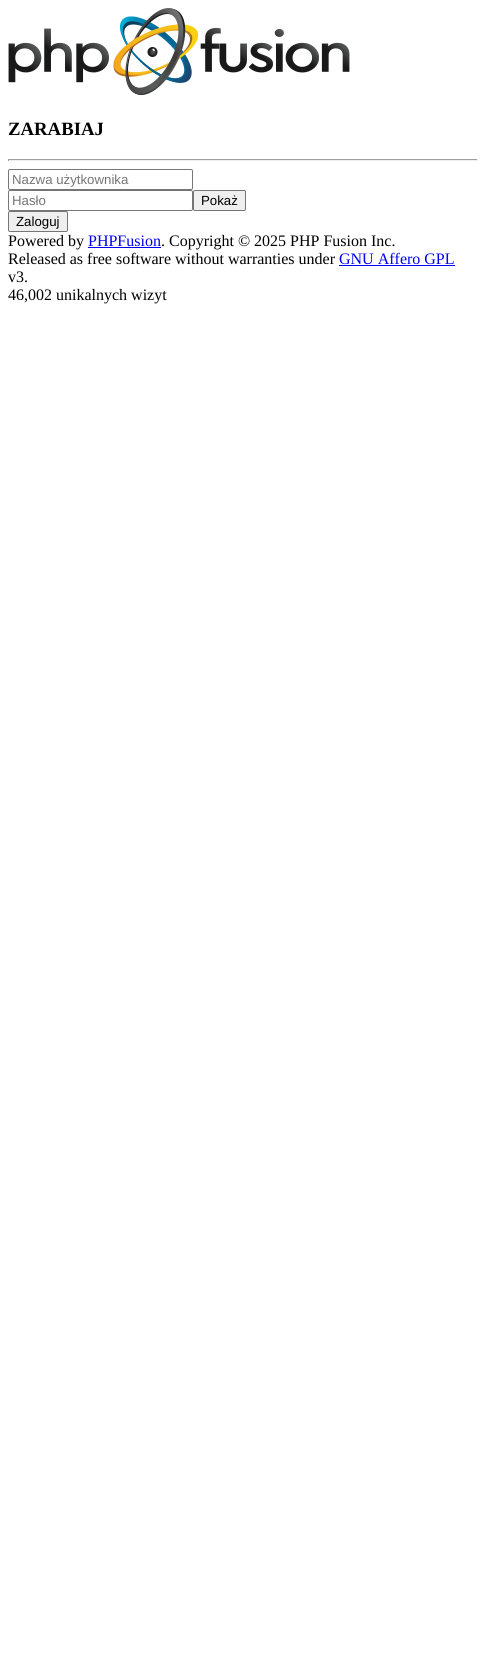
import math
import cairo

surface = cairo.ImageSurface(cairo.FORMAT_RGB24, 486, 1672)
cr = cairo.Context(surface)
options = cairo.FontOptions()
options.set_hint_metrics(cairo.HINT_METRICS_OFF)
options.set_hint_style(cairo.HINT_STYLE_NONE)
cr.set_font_options(options)
cr.set_miter_limit(4)


def rgb(code):
    cr.set_source_rgb(*(v / 255 for v in bytes.fromhex(code[-6:])))


def rrect(x, y, w, h, r):
    cr.new_sub_path()
    for i, (u, v) in enumerate([(x + w - r, y + h - r), (x + r, y + h - r), (x + r, y + r), (x + w - r, y + r)]):
        cr.arc(u, v, r, i * math.pi / 2, (i + 1) * math.pi / 2)
    cr.close_path()


def image(path, x, y, w, h):
    cr.save()
    cr.set_source_surface(cairo.ImageSurface.create_from_png(path), x, y)
    cr.rectangle(x, y, w, h)
    cr.fill()
    cr.restore()


rgb("#ffffff")
cr.paint()
image("img/1.png", 8, 8, 342, 87)
for x, y, w, h, color in [
    (8, 159, 470, 1, "#9f9f9f"),
    (477, 159, 1, 2, "#eeeeee"),
    (8, 160, 470, 1, "#eeeeee"),
    (8, 159, 1, 2, "#9f9f9f"),
]:
    rgb(color)
    cr.rectangle(x, y, w, h)
    cr.fill()
rrect(8.5, 169.5, 184, 20, 1.5)
rgb("#767676")
cr.set_line_width(1)
cr.stroke()
rrect(8.5, 190.5, 184, 20, 1.5)
cr.stroke()
rgb("#efefef")
rrect(193.5, 190.5, 52, 20, 1.5)
cr.fill_preserve()
rgb("#767676")
cr.stroke()
rgb("#efefef")
rrect(8.5, 211.5, 59, 20, 1.5)
cr.fill_preserve()
rgb("#767676")
cr.stroke()
rgb("#0000ee")
cr.rectangle(88, 247, 73, 1)
cr.fill()
cr.rectangle(339, 265, 116, 1)
cr.fill()
cr.select_font_face("Liberation Serif", cairo.FONT_SLANT_NORMAL, cairo.FONT_WEIGHT_BOLD)
cr.set_font_size(18.75)
rgb("#000000")
cr.move_to(8, 135)
cr.show_text("ZARABIAJ")
cr.select_font_face("Liberation Sans")
cr.set_font_size(13.25)
rgb("#757575")
cr.move_to(12, 184)
cr.show_text("Nazwa użytkownika")
cr.move_to(12, 205)
cr.show_text("Hasło")
rgb("#000000")
cr.move_to(201, 205)
cr.show_text("Pokaż")
cr.move_to(16, 226)
cr.show_text("Zaloguj")
cr.select_font_face("Liberation Serif")
cr.set_font_size(16)
cr.move_to(8, 246)
cr.show_text("Powered by")
rgb("#0000ee")
cr.move_to(88, 246)
cr.show_text("PHPFusion")
rgb("#000000")
cr.move_to(161, 246)
cr.show_text(". Copyright © 2025 PHP Fusion Inc.")
cr.move_to(8, 264)
cr.show_text("Released as free software without warranties under")
rgb("#0000ee")
cr.move_to(339, 264)
cr.show_text("GNU Affero GPL")
rgb("#000000")
cr.move_to(8, 282)
cr.show_text("v3.")
cr.move_to(8, 300)
cr.show_text("46,002 unikalnych wizyt")
surface.write_to_png("page.png")
